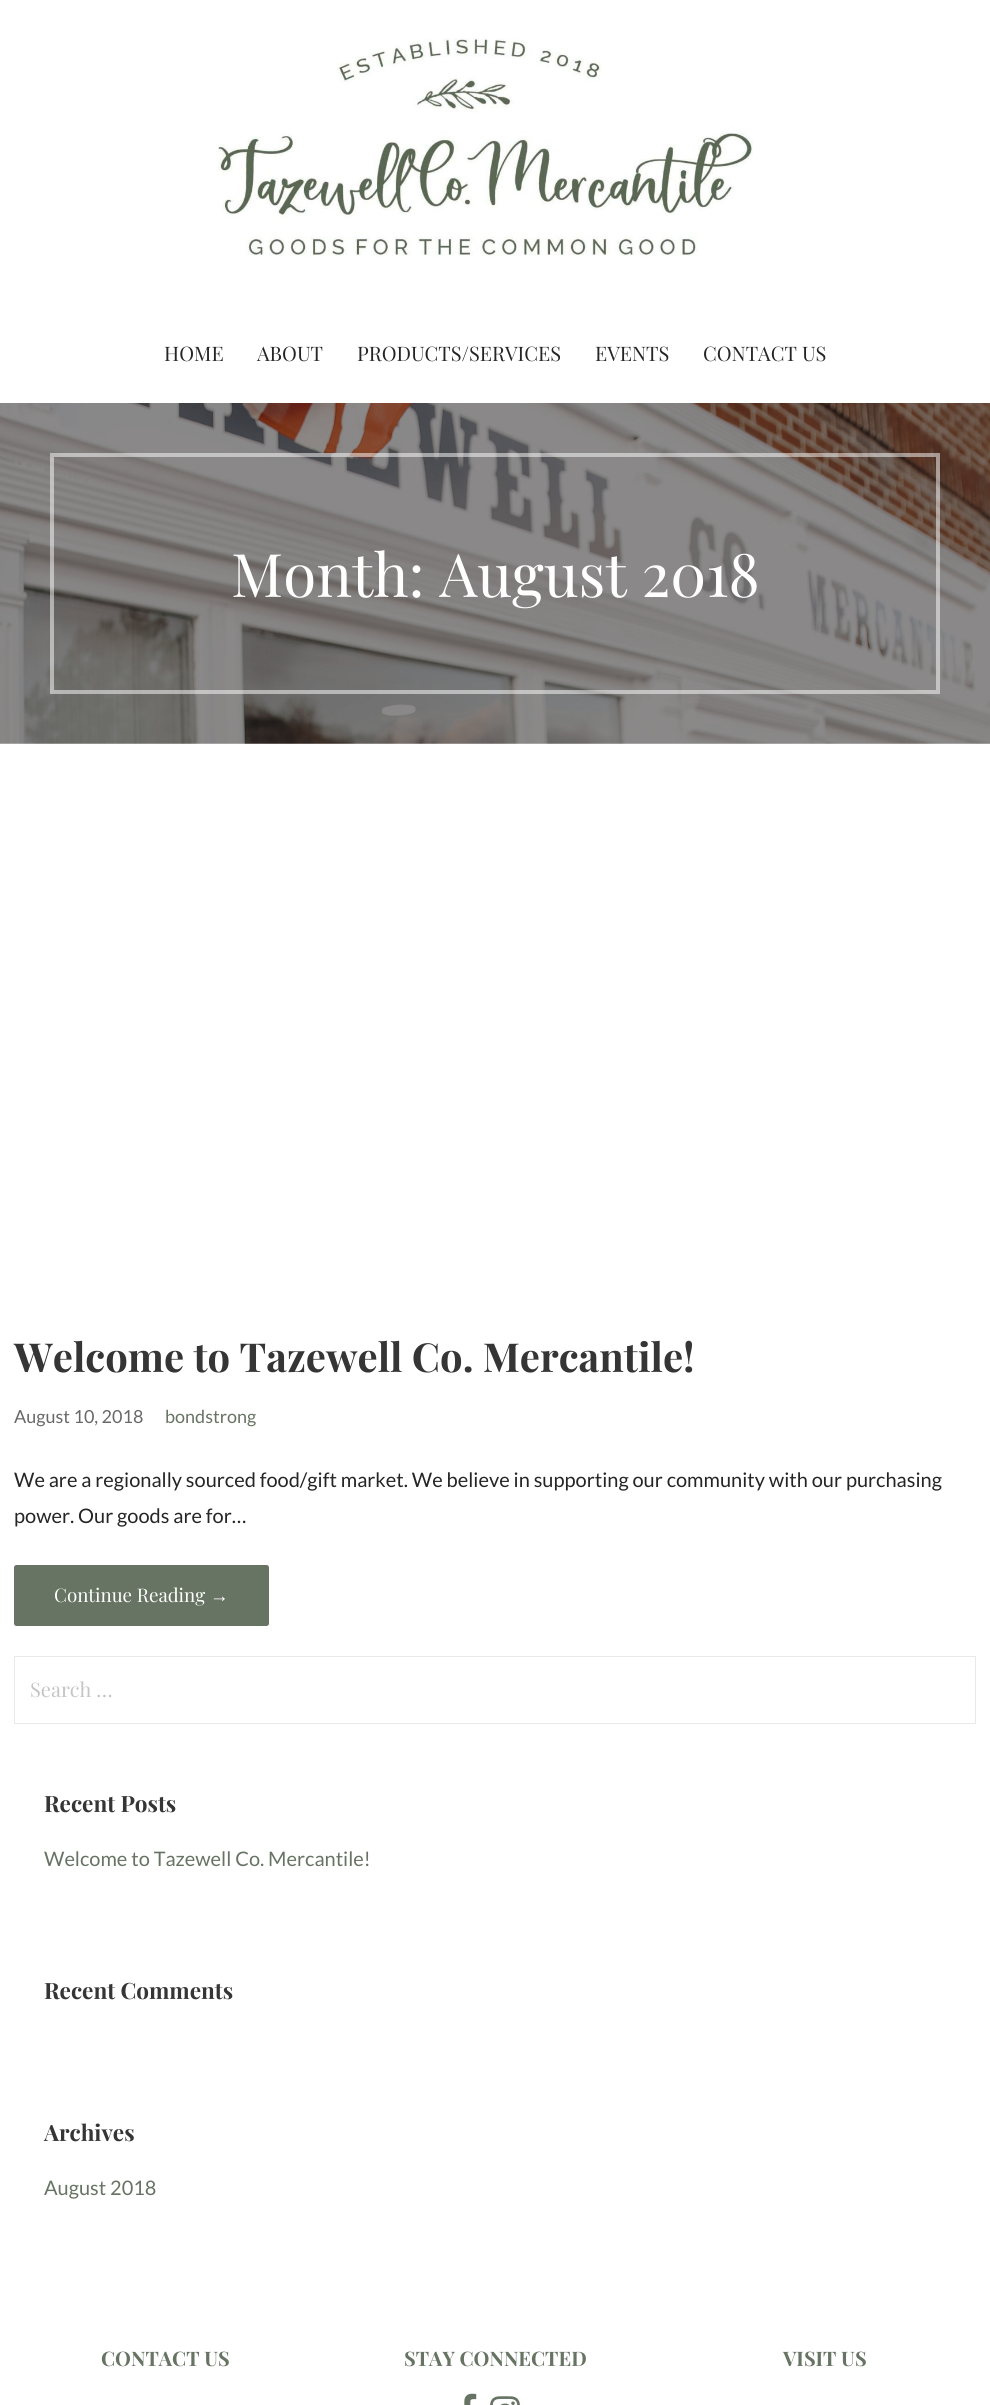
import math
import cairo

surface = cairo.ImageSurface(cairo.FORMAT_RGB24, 990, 2405)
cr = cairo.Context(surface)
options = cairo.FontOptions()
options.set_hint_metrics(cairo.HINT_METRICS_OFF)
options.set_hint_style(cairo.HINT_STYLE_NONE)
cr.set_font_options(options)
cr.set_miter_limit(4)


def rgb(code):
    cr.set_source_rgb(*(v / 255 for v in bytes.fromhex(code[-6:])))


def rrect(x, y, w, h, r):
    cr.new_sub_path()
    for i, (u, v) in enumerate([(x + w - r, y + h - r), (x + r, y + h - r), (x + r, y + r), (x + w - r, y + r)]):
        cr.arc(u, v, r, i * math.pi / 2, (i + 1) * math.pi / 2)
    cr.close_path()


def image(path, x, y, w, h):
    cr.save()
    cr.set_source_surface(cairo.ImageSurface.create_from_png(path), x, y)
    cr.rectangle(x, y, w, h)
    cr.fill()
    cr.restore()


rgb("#ffffff")
cr.paint()
image("img/1.png", 218, 38, 535, 219)
image("img/2.png", 0, 403, 990, 341)
cr.rectangle(52, 455, 886, 237)
cr.set_source_rgba(1, 1, 1, 0.5)
cr.set_line_width(4)
cr.stroke()
rgb("#677363")
rrect(14, 1565, 255, 61, 2.5)
cr.fill()
cr.rectangle(14.5, 1656.5, 961, 67)
rgb("#e9e9e9")
cr.set_line_width(1)
cr.stroke()
image("img/3.png", 464, 2393, 13, 12)
image("img/4.png", 490, 2396, 30, 9)
cr.select_font_face("Playfair Display")
cr.set_font_size(20)
rgb("#252525")
for x, y, s in [
    (164, 361, "HOME"),
    (257, 361, "ABOUT"),
    (357, 361, "PRODUCTS/SERVICES"),
    (595, 361, "EVENTS"),
    (703, 361, "CONTACT US"),
]:
    cr.move_to(x, y)
    cr.show_text(s)
cr.set_font_size(60)
rgb("#ffffff")
cr.move_to(231, 597)
cr.show_text("Month: August 2018")
cr.select_font_face("Playfair Display", cairo.FONT_SLANT_NORMAL, cairo.FONT_WEIGHT_BOLD)
cr.set_font_size(40)
rgb("#353535")
cr.move_to(14, 1372)
cr.show_text("Welcome to Tazewell Co. Mercantile!")
cr.select_font_face("Lato")
cr.set_font_size(18)
rgb("#686868")
cr.move_to(14, 1423)
cr.show_text("August 10, 2018")
rgb("#677363")
cr.move_to(165, 1423)
cr.show_text("bondstrong")
cr.set_font_size(20)
rgb("#252525")
cr.move_to(14, 1487)
cr.show_text("We are a regionally sourced food/gift market. We believe in supporting our community with our purchasing")
cr.move_to(14, 1523)
cr.show_text("power. Our goods are for…")
cr.select_font_face("Playfair Display")
cr.set_font_size(18.75)
rgb("#ffffff")
cr.move_to(54, 1602)
cr.show_text("Continue Reading")
cr.select_font_face("Liberation Sans")
cr.move_to(210, 1602)
cr.show_text("→")
cr.select_font_face("Playfair Display")
cr.set_font_size(20)
rgb("#c4c4c4")
cr.move_to(30, 1697)
cr.show_text("Search …")
cr.select_font_face("Playfair Display", cairo.FONT_SLANT_NORMAL, cairo.FONT_WEIGHT_BOLD)
cr.set_font_size(22.5)
rgb("#353535")
cr.move_to(44, 1812)
cr.show_text("Recent Posts")
cr.select_font_face("Lato")
cr.set_font_size(20)
rgb("#677363")
cr.move_to(44, 1866)
cr.show_text("Welcome to Tazewell Co. Mercantile!")
cr.select_font_face("Playfair Display", cairo.FONT_SLANT_NORMAL, cairo.FONT_WEIGHT_BOLD)
cr.set_font_size(22.5)
rgb("#353535")
cr.move_to(44, 1999)
cr.show_text("Recent Comments")
cr.move_to(44, 2141)
cr.show_text("Archives")
cr.select_font_face("Lato")
cr.set_font_size(20)
rgb("#677363")
cr.move_to(44, 2195)
cr.show_text("August 2018")
cr.select_font_face("Playfair Display", cairo.FONT_SLANT_NORMAL, cairo.FONT_WEIGHT_BOLD)
for x, y, s in [
    (101, 2366, "CONTACT US"),
    (404, 2366, "STAY CONNECTED"),
    (783, 2366, "VISIT US"),
]:
    cr.move_to(x, y)
    cr.show_text(s)
surface.write_to_png("page.png")
